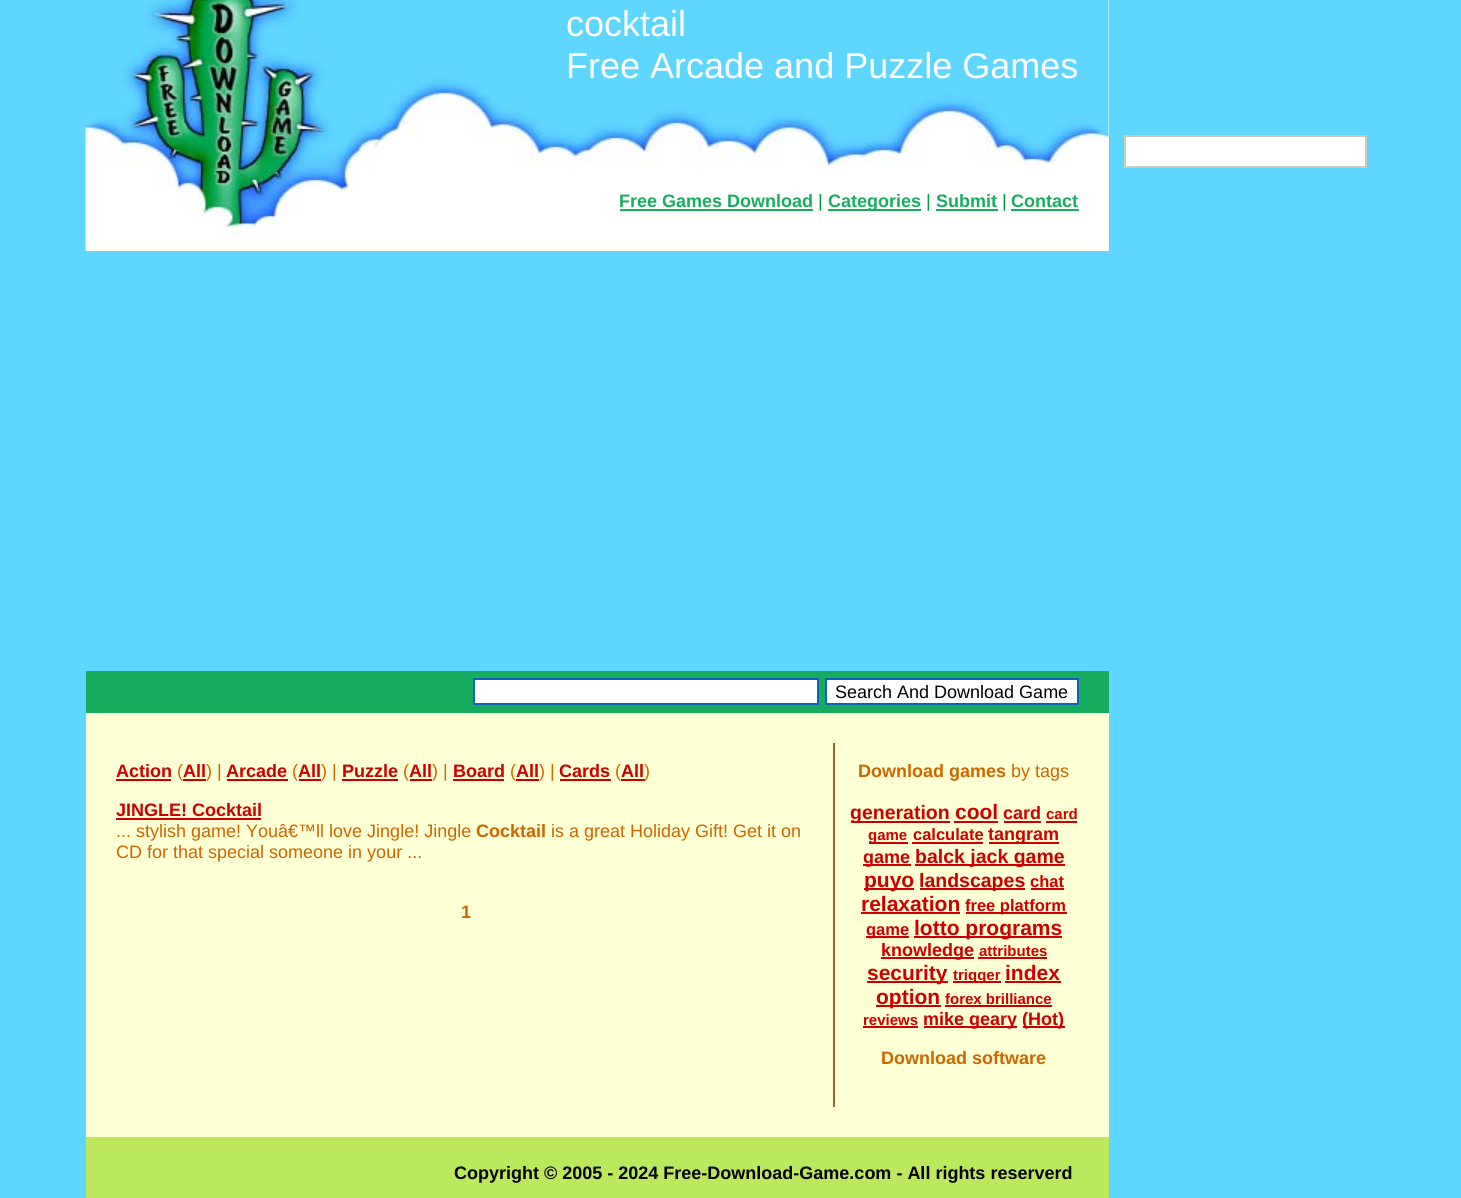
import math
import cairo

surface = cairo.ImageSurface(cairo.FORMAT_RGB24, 1461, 1198)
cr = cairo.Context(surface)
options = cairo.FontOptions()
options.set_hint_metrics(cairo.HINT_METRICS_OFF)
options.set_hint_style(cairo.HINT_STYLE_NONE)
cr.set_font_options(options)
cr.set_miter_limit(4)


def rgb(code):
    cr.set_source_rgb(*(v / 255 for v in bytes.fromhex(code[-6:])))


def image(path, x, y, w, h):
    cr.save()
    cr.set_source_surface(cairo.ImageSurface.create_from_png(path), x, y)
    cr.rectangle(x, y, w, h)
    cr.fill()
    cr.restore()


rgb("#5fd6ff")
cr.paint()
rgb("#ffffff")
cr.rectangle(86, 0, 1023, 251)
cr.fill()
image("img/1.png", 85, 0, 1024, 251)
for x, y, w, h, color in [
    (620, 209, 193, 2, "#16ad60"),
    (828, 209, 93, 2, "#16ad60"),
    (936, 209, 62, 2, "#16ad60"),
    (1011, 209, 68, 2, "#16ad60"),
    (86, 671, 1023, 42, "#16ad60"),
]:
    rgb(color)
    cr.rectangle(x, y, w, h)
    cr.fill()
rgb("#ffffff")
cr.rectangle(474, 679, 344, 25)
cr.fill_preserve()
rgb("#1162b6")
cr.stroke()
rgb("#ffffff")
cr.rectangle(826, 679, 252, 25)
cr.fill_preserve()
rgb("#1162b6")
cr.stroke()
for x, y, w, h, color in [
    (86, 713, 1023, 424, "#fdffd5"),
    (116, 779, 55, 2, "#cc0000"),
    (183, 779, 23, 2, "#cc0000"),
    (227, 779, 61, 2, "#cc0000"),
    (299, 779, 22, 2, "#cc0000"),
    (342, 779, 56, 2, "#cc0000"),
    (410, 779, 22, 2, "#cc0000"),
    (453, 779, 51, 2, "#cc0000"),
    (516, 779, 23, 2, "#cc0000"),
    (560, 779, 51, 2, "#cc0000"),
    (116, 818, 145, 2, "#cc0000"),
    (833, 743, 2, 364, "#996633"),
    (851, 821, 99, 2, "#cc0000"),
    (954, 821, 44, 2, "#cc0000"),
    (1004, 821, 37, 2, "#cc0000"),
    (1046, 821, 31, 2, "#cc0000"),
    (869, 842, 39, 2, "#cc0000"),
    (912, 842, 71, 2, "#cc0000"),
    (989, 842, 70, 2, "#cc0000"),
    (863, 864, 48, 2, "#cc0000"),
    (915, 864, 150, 2, "#cc0000"),
    (864, 888, 50, 2, "#cc0000"),
    (920, 888, 105, 2, "#cc0000"),
    (1031, 888, 33, 2, "#cc0000"),
    (861, 912, 99, 2, "#cc0000"),
    (966, 912, 101, 2, "#cc0000"),
    (866, 936, 43, 2, "#cc0000"),
    (914, 936, 148, 2, "#cc0000"),
    (881, 957, 93, 2, "#cc0000"),
    (978, 957, 69, 2, "#cc0000"),
    (867, 981, 81, 2, "#cc0000"),
    (953, 981, 48, 2, "#cc0000"),
    (1005, 981, 56, 2, "#cc0000"),
    (876, 1005, 65, 2, "#cc0000"),
    (945, 1005, 107, 2, "#cc0000"),
    (863, 1026, 55, 2, "#cc0000"),
    (924, 1026, 93, 2, "#cc0000"),
    (1023, 1026, 42, 2, "#cc0000"),
    (86, 1137, 1023, 61, "#bce85d"),
]:
    rgb(color)
    cr.rectangle(x, y, w, h)
    cr.fill()
rgb("#ffffff")
cr.rectangle(1125, 136, 241, 31)
cr.fill_preserve()
rgb("#cccab8")
cr.stroke()
cr.select_font_face("Liberation Sans")
cr.set_font_size(36)
rgb("#ffffff")
cr.move_to(566, 36)
cr.show_text("cocktail")
cr.move_to(566, 78)
cr.show_text("Free Arcade and Puzzle Games")
cr.select_font_face("Liberation Sans", cairo.FONT_SLANT_NORMAL, cairo.FONT_WEIGHT_BOLD)
cr.set_font_size(18)
rgb("#16ad60")
cr.move_to(619, 207)
cr.show_text("Free Games Download")
cr.select_font_face("Liberation Sans")
rgb("#009a39")
cr.move_to(818, 207)
cr.show_text("|")
cr.select_font_face("Liberation Sans", cairo.FONT_SLANT_NORMAL, cairo.FONT_WEIGHT_BOLD)
rgb("#16ad60")
cr.move_to(828, 207)
cr.show_text("Categories")
cr.select_font_face("Liberation Sans")
rgb("#009a39")
cr.move_to(926, 207)
cr.show_text("|")
cr.select_font_face("Liberation Sans", cairo.FONT_SLANT_NORMAL, cairo.FONT_WEIGHT_BOLD)
rgb("#16ad60")
cr.move_to(936, 207)
cr.show_text("Submit")
cr.select_font_face("Liberation Sans")
rgb("#009a39")
cr.move_to(1002, 207)
cr.show_text("|")
cr.select_font_face("Liberation Sans", cairo.FONT_SLANT_NORMAL, cairo.FONT_WEIGHT_BOLD)
rgb("#16ad60")
cr.move_to(1011, 207)
cr.show_text("Contact")
cr.select_font_face("Liberation Sans")
rgb("#000000")
cr.move_to(835, 698)
cr.show_text("Search And Download Game")
cr.select_font_face("Liberation Sans", cairo.FONT_SLANT_NORMAL, cairo.FONT_WEIGHT_BOLD)
rgb("#cc0000")
cr.move_to(116, 777)
cr.show_text("Action")
cr.select_font_face("Liberation Sans")
rgb("#cc6600")
cr.move_to(177, 777)
cr.show_text("(")
cr.select_font_face("Liberation Sans", cairo.FONT_SLANT_NORMAL, cairo.FONT_WEIGHT_BOLD)
rgb("#cc0000")
cr.move_to(183, 777)
cr.show_text("All")
cr.select_font_face("Liberation Sans")
rgb("#cc6600")
cr.move_to(206, 777)
cr.show_text(") |")
cr.select_font_face("Liberation Sans", cairo.FONT_SLANT_NORMAL, cairo.FONT_WEIGHT_BOLD)
rgb("#cc0000")
cr.move_to(226, 777)
cr.show_text("Arcade")
cr.select_font_face("Liberation Sans")
rgb("#cc6600")
cr.move_to(292, 777)
cr.show_text("(")
cr.select_font_face("Liberation Sans", cairo.FONT_SLANT_NORMAL, cairo.FONT_WEIGHT_BOLD)
rgb("#cc0000")
cr.move_to(298, 777)
cr.show_text("All")
cr.select_font_face("Liberation Sans")
rgb("#cc6600")
cr.move_to(321, 777)
cr.show_text(") |")
cr.select_font_face("Liberation Sans", cairo.FONT_SLANT_NORMAL, cairo.FONT_WEIGHT_BOLD)
rgb("#cc0000")
cr.move_to(342, 777)
cr.show_text("Puzzle")
cr.select_font_face("Liberation Sans")
rgb("#cc6600")
cr.move_to(403, 777)
cr.show_text("(")
cr.select_font_face("Liberation Sans", cairo.FONT_SLANT_NORMAL, cairo.FONT_WEIGHT_BOLD)
rgb("#cc0000")
cr.move_to(409, 777)
cr.show_text("All")
cr.select_font_face("Liberation Sans")
rgb("#cc6600")
cr.move_to(432, 777)
cr.show_text(") |")
cr.select_font_face("Liberation Sans", cairo.FONT_SLANT_NORMAL, cairo.FONT_WEIGHT_BOLD)
rgb("#cc0000")
cr.move_to(453, 777)
cr.show_text("Board")
cr.select_font_face("Liberation Sans")
rgb("#cc6600")
cr.move_to(510, 777)
cr.show_text("(")
cr.select_font_face("Liberation Sans", cairo.FONT_SLANT_NORMAL, cairo.FONT_WEIGHT_BOLD)
rgb("#cc0000")
cr.move_to(516, 777)
cr.show_text("All")
cr.select_font_face("Liberation Sans")
rgb("#cc6600")
cr.move_to(539, 777)
cr.show_text(") |")
cr.select_font_face("Liberation Sans", cairo.FONT_SLANT_NORMAL, cairo.FONT_WEIGHT_BOLD)
rgb("#cc0000")
cr.move_to(559, 777)
cr.show_text("Cards")
cr.select_font_face("Liberation Sans")
rgb("#cc6600")
cr.move_to(615, 777)
cr.show_text("(")
cr.select_font_face("Liberation Sans", cairo.FONT_SLANT_NORMAL, cairo.FONT_WEIGHT_BOLD)
rgb("#cc0000")
cr.move_to(621, 777)
cr.show_text("All")
cr.rectangle(621, 779, 24, 2)
cr.fill()
cr.select_font_face("Liberation Sans")
rgb("#cc6600")
cr.move_to(644, 777)
cr.show_text(")")
cr.select_font_face("Liberation Sans", cairo.FONT_SLANT_NORMAL, cairo.FONT_WEIGHT_BOLD)
rgb("#cc0000")
cr.move_to(116, 816)
cr.show_text("JINGLE! Cocktail")
cr.select_font_face("Liberation Sans")
rgb("#cc6600")
cr.move_to(116, 837)
cr.show_text("... stylish game! Youâ€™ll love Jingle! Jingle")
cr.select_font_face("Liberation Sans", cairo.FONT_SLANT_NORMAL, cairo.FONT_WEIGHT_BOLD)
cr.move_to(476, 837)
cr.show_text("Cocktail")
cr.select_font_face("Liberation Sans")
cr.move_to(551, 837)
cr.show_text("is a great Holiday Gift! Get it on")
cr.move_to(116, 858)
cr.show_text("CD for that special someone in your ...")
cr.select_font_face("Liberation Sans", cairo.FONT_SLANT_NORMAL, cairo.FONT_WEIGHT_BOLD)
cr.move_to(461, 918)
cr.show_text("1")
cr.move_to(858, 777)
cr.show_text("Download games")
cr.select_font_face("Liberation Sans")
cr.move_to(1011, 777)
cr.show_text("by tags")
cr.select_font_face("Liberation Sans", cairo.FONT_SLANT_NORMAL, cairo.FONT_WEIGHT_BOLD)
cr.set_font_size(19.5)
rgb("#cc0000")
cr.move_to(850, 819)
cr.show_text("generation")
cr.set_font_size(21)
cr.move_to(955, 819)
cr.show_text("cool")
cr.set_font_size(18)
cr.move_to(1003, 819)
cr.show_text("card")
cr.set_font_size(15)
cr.move_to(1046, 819)
cr.show_text("card")
cr.move_to(868, 840)
cr.show_text("game")
cr.set_font_size(16.5)
cr.move_to(913, 840)
cr.show_text("calculate")
cr.set_font_size(18)
cr.move_to(988, 840)
cr.show_text("tangram")
cr.move_to(863, 863)
cr.show_text("game")
cr.set_font_size(19.5)
cr.move_to(915, 863)
cr.show_text("balck jack game")
cr.set_font_size(21)
cr.move_to(864, 887)
cr.show_text("puyo")
cr.set_font_size(19.5)
cr.move_to(919, 887)
cr.show_text("landscapes")
cr.set_font_size(16.5)
cr.move_to(1030, 887)
cr.show_text("chat")
cr.set_font_size(21)
cr.move_to(861, 911)
cr.show_text("relaxation")
cr.set_font_size(16.5)
cr.move_to(965, 911)
cr.show_text("free platform")
cr.move_to(866, 935)
cr.show_text("game")
cr.set_font_size(21)
cr.move_to(914, 935)
cr.show_text("lotto programs")
cr.set_font_size(18)
cr.move_to(881, 956)
cr.show_text("knowledge")
cr.set_font_size(15)
cr.move_to(979, 956)
cr.show_text("attributes")
cr.set_font_size(21)
cr.move_to(867, 980)
cr.show_text("security")
cr.set_font_size(15)
cr.move_to(953, 980)
cr.show_text("trigger")
cr.set_font_size(21)
cr.move_to(1005, 980)
cr.show_text("index")
cr.move_to(876, 1004)
cr.show_text("option")
cr.set_font_size(15)
cr.move_to(945, 1004)
cr.show_text("forex brilliance")
cr.move_to(863, 1025)
cr.show_text("reviews")
cr.set_font_size(18)
cr.move_to(923, 1025)
cr.show_text("mike geary")
cr.move_to(1022, 1025)
cr.show_text("(Hot)")
rgb("#cc6600")
cr.move_to(881, 1064)
cr.show_text("Download software")
rgb("#000000")
cr.move_to(454, 1179)
cr.show_text("Copyright © 2005 - 2024 Free-Download-Game.com - All rights reserverd")
surface.write_to_png("page.png")
